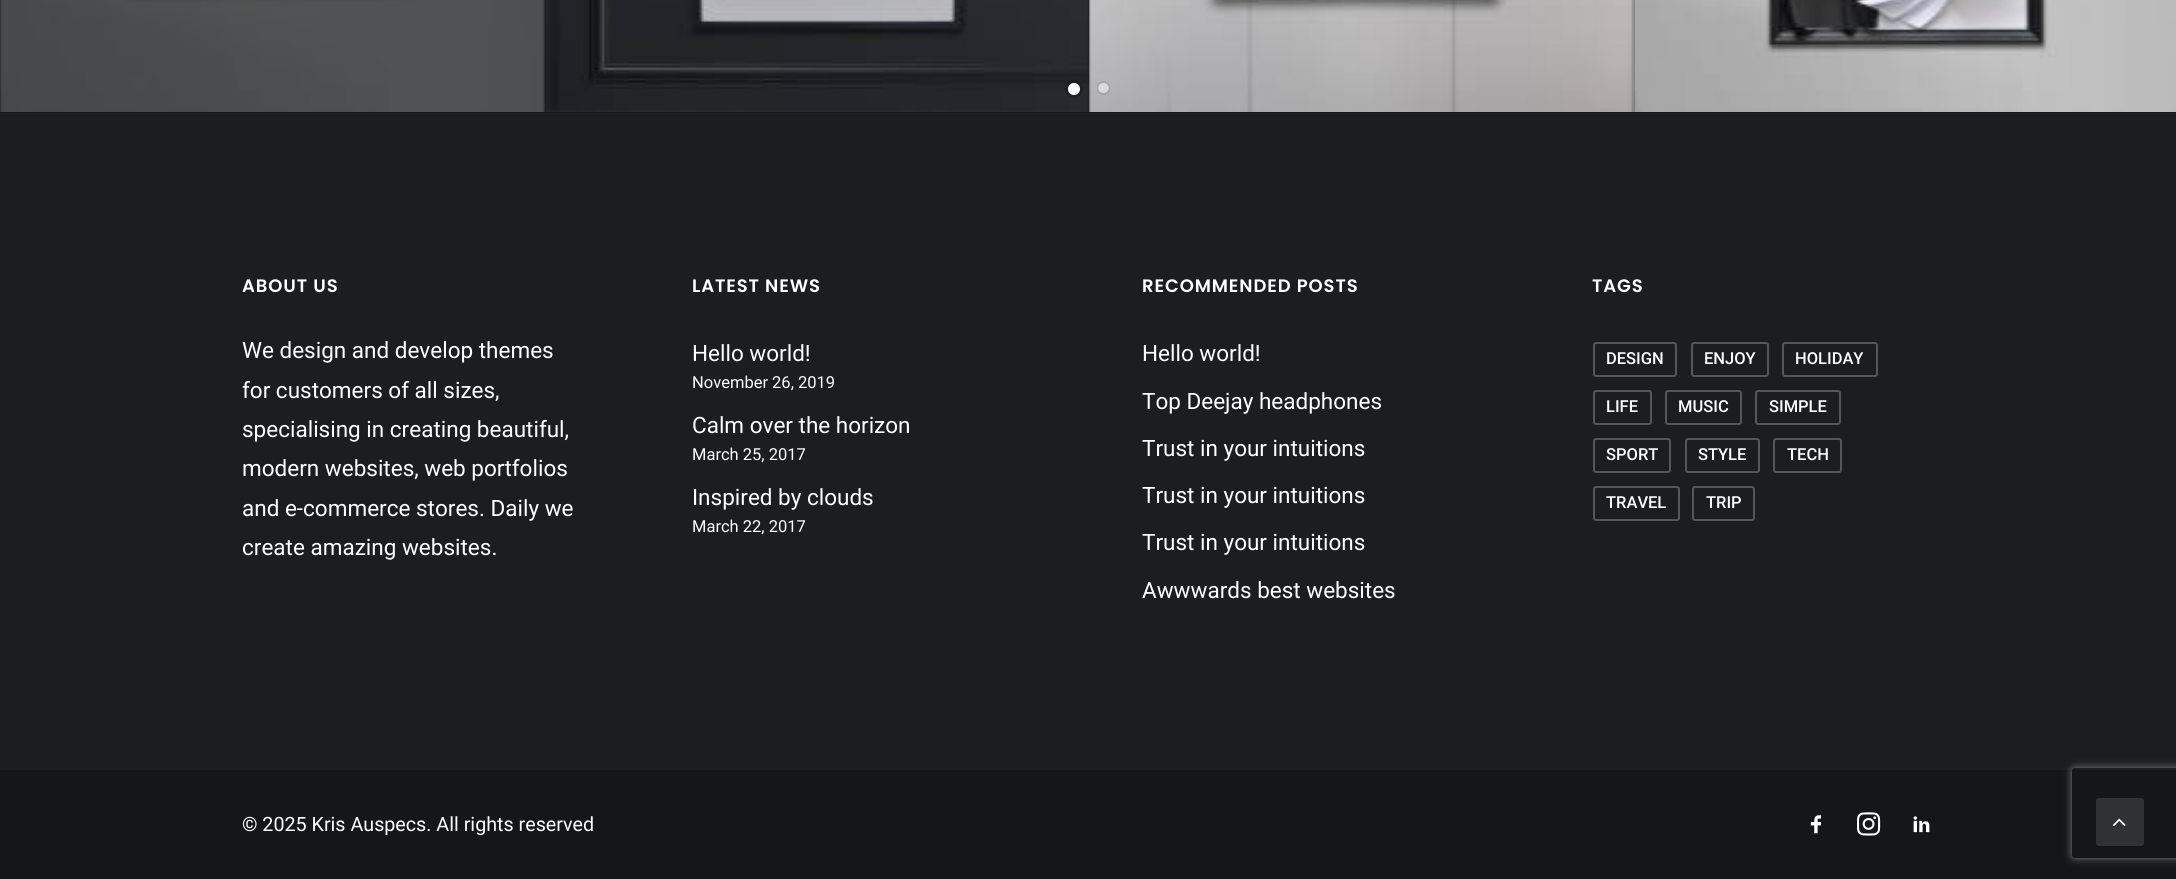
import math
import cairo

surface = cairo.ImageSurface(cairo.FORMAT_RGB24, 2176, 879)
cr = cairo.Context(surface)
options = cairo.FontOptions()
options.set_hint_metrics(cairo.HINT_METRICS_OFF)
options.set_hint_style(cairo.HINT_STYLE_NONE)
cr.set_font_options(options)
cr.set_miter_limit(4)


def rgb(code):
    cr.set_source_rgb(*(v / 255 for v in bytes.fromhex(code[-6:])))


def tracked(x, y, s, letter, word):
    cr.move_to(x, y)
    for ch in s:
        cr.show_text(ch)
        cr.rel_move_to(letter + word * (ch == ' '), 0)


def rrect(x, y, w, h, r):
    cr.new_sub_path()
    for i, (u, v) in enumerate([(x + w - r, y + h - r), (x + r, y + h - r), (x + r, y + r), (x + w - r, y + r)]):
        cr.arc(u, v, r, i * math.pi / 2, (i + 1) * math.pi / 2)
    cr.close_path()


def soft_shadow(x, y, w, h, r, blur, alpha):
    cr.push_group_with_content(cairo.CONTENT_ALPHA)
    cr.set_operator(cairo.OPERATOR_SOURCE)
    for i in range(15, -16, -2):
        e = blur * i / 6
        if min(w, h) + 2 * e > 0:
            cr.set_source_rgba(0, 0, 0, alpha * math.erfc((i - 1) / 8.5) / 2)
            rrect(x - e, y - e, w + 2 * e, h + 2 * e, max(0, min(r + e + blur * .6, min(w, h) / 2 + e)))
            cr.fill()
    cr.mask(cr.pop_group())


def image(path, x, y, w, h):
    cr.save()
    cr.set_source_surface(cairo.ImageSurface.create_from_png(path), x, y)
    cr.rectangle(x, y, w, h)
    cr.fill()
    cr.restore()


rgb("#141618")
cr.paint()
image("img/1.png", 0, 0, 545, 112)
image("img/2.png", 544, 0, 545, 112)
cr.set_source_rgba(0.078, 0.086, 0.094, 0.65)
cr.rectangle(0, 0, 545, 112)
cr.fill()
image("img/3.png", 1089, 0, 545, 112)
image("img/4.png", 1633, 0, 543, 112)
cr.arc(1074, 89, 7.5, 0, 2 * math.pi)
cr.set_source_rgba(0, 0, 0, 0.2)
cr.set_line_width(3)
cr.stroke()
rgb("#ffffff")
cr.arc(1074, 89, 6, 0, 2 * math.pi)
cr.fill()
rrect(1098, 82, 11, 12, 5.5)
cr.set_source_rgba(0, 0, 0, 0.1)
cr.set_line_width(2)
cr.stroke()
cr.set_source_rgba(1, 1, 1, 0.5)
rrect(1098, 83, 11, 10, 5)
cr.fill()
rgb("#1b1d1f")
cr.rectangle(0, 113, 2176, 657)
cr.fill()
rrect(1594, 343, 82, 33, 2)
rgb("#545657")
cr.stroke()
rrect(1692, 343, 76, 33, 2)
cr.stroke()
rrect(1783, 343, 94, 33, 2)
cr.stroke()
rrect(1594, 391, 57, 33, 2)
cr.stroke()
rrect(1666, 391, 75, 33, 2)
cr.stroke()
rrect(1756, 391, 84, 33, 2)
cr.stroke()
rrect(1594, 439, 76, 33, 2)
cr.stroke()
rrect(1686, 439, 73, 33, 2)
cr.stroke()
rrect(1774, 439, 67, 33, 2)
cr.stroke()
rrect(1594, 487, 85, 33, 2)
cr.stroke()
rrect(1693, 487, 61, 33, 2)
cr.stroke()
image("img/5.png", 1810, 815, 11, 19)
image("img/6.png", 1857, 812, 24, 24)
image("img/7.png", 1913, 816, 17, 17)
cr.save()
cr.set_fill_rule(cairo.FILL_RULE_EVEN_ODD)
cr.new_path()
cr.move_to(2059, 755)
cr.line_to(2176, 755)
cr.line_to(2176, 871)
cr.line_to(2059, 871)
cr.close_path()
cr.move_to(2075, 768)
cr.line_to(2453, 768)
cr.curve_to(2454.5, 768, 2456, 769.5, 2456, 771)
cr.line_to(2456, 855)
cr.curve_to(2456, 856.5, 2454.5, 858, 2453, 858)
cr.line_to(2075, 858)
cr.curve_to(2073.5, 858, 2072, 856.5, 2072, 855)
cr.line_to(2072, 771)
cr.curve_to(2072, 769.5, 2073.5, 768, 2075, 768)
cr.close_path()
cr.clip()
rgb("#808080")
soft_shadow(2072, 768, 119, 90, 3, 4, 1)
cr.restore()
rgb("#303133")
rrect(2097, 799, 46, 46, 2)
cr.fill_preserve()
cr.stroke()
image("img/8.png", 2113, 818, 13, 8)
cr.select_font_face("Poppins SemiBold")
cr.set_font_size(18)
rgb("#ffffff")
tracked(242, 292, "ABOUT US", 0.9, 0)
cr.select_font_face("Roboto")
cr.set_font_size(22.5)
for x, y, s in [
    (242, 358, "We design and develop themes"),
    (242, 398, "for customers of all sizes,"),
    (242, 437, "specialising in creating beautiful,"),
    (242, 476, "modern websites, web portfolios"),
    (242, 516, "and e-commerce stores. Daily we"),
    (242, 555, "create amazing websites."),
]:
    cr.move_to(x, y)
    cr.show_text(s)
cr.select_font_face("Poppins SemiBold")
cr.set_font_size(18)
tracked(692, 292, "LATEST NEWS", 0.9, 0)
cr.select_font_face("Roboto")
cr.set_font_size(22.5)
cr.move_to(692, 361)
cr.show_text("Hello world!")
cr.set_font_size(16.5)
cr.move_to(692, 388)
cr.show_text("November 26, 2019")
cr.set_font_size(22.5)
cr.move_to(692, 433)
cr.show_text("Calm over the horizon")
cr.set_font_size(16.5)
cr.move_to(692, 460)
cr.show_text("March 25, 2017")
cr.set_font_size(22.5)
cr.move_to(692, 505)
cr.show_text("Inspired by clouds")
cr.set_font_size(16.5)
cr.move_to(692, 532)
cr.show_text("March 22, 2017")
cr.select_font_face("Poppins SemiBold")
cr.set_font_size(18)
tracked(1142, 292, "RECOMMENDED POSTS", 0.9, 0)
cr.select_font_face("Roboto")
cr.set_font_size(22.5)
for x, y, s in [
    (1142, 361, "Hello world!"),
    (1142, 409, "Top Deejay headphones"),
    (1142, 456, "Trust in your intuitions"),
    (1142, 503, "Trust in your intuitions"),
    (1142, 550, "Trust in your intuitions"),
    (1142, 598, "Awwwards best websites"),
]:
    cr.move_to(x, y)
    cr.show_text(s)
cr.select_font_face("Poppins SemiBold")
cr.set_font_size(18)
tracked(1592, 292, "TAGS", 0.9, 0)
cr.select_font_face("Roboto Medium")
cr.set_font_size(16.5)
for x, y, s in [
    (1606, 364, "DESIGN"),
    (1704, 364, "ENJOY"),
    (1795, 364, "HOLIDAY"),
    (1606, 412, "LIFE"),
    (1678, 412, "MUSIC"),
    (1769, 412, "SIMPLE"),
    (1606, 460, "SPORT"),
    (1698, 460, "STYLE"),
    (1787, 460, "TECH"),
    (1606, 508, "TRAVEL"),
    (1706, 508, "TRIP"),
]:
    cr.move_to(x, y)
    cr.show_text(s)
cr.select_font_face("Roboto")
cr.set_font_size(19.7)
cr.move_to(242, 831)
cr.show_text("© 2025 Kris Auspecs. All rights reserved")
surface.write_to_png("page.png")
